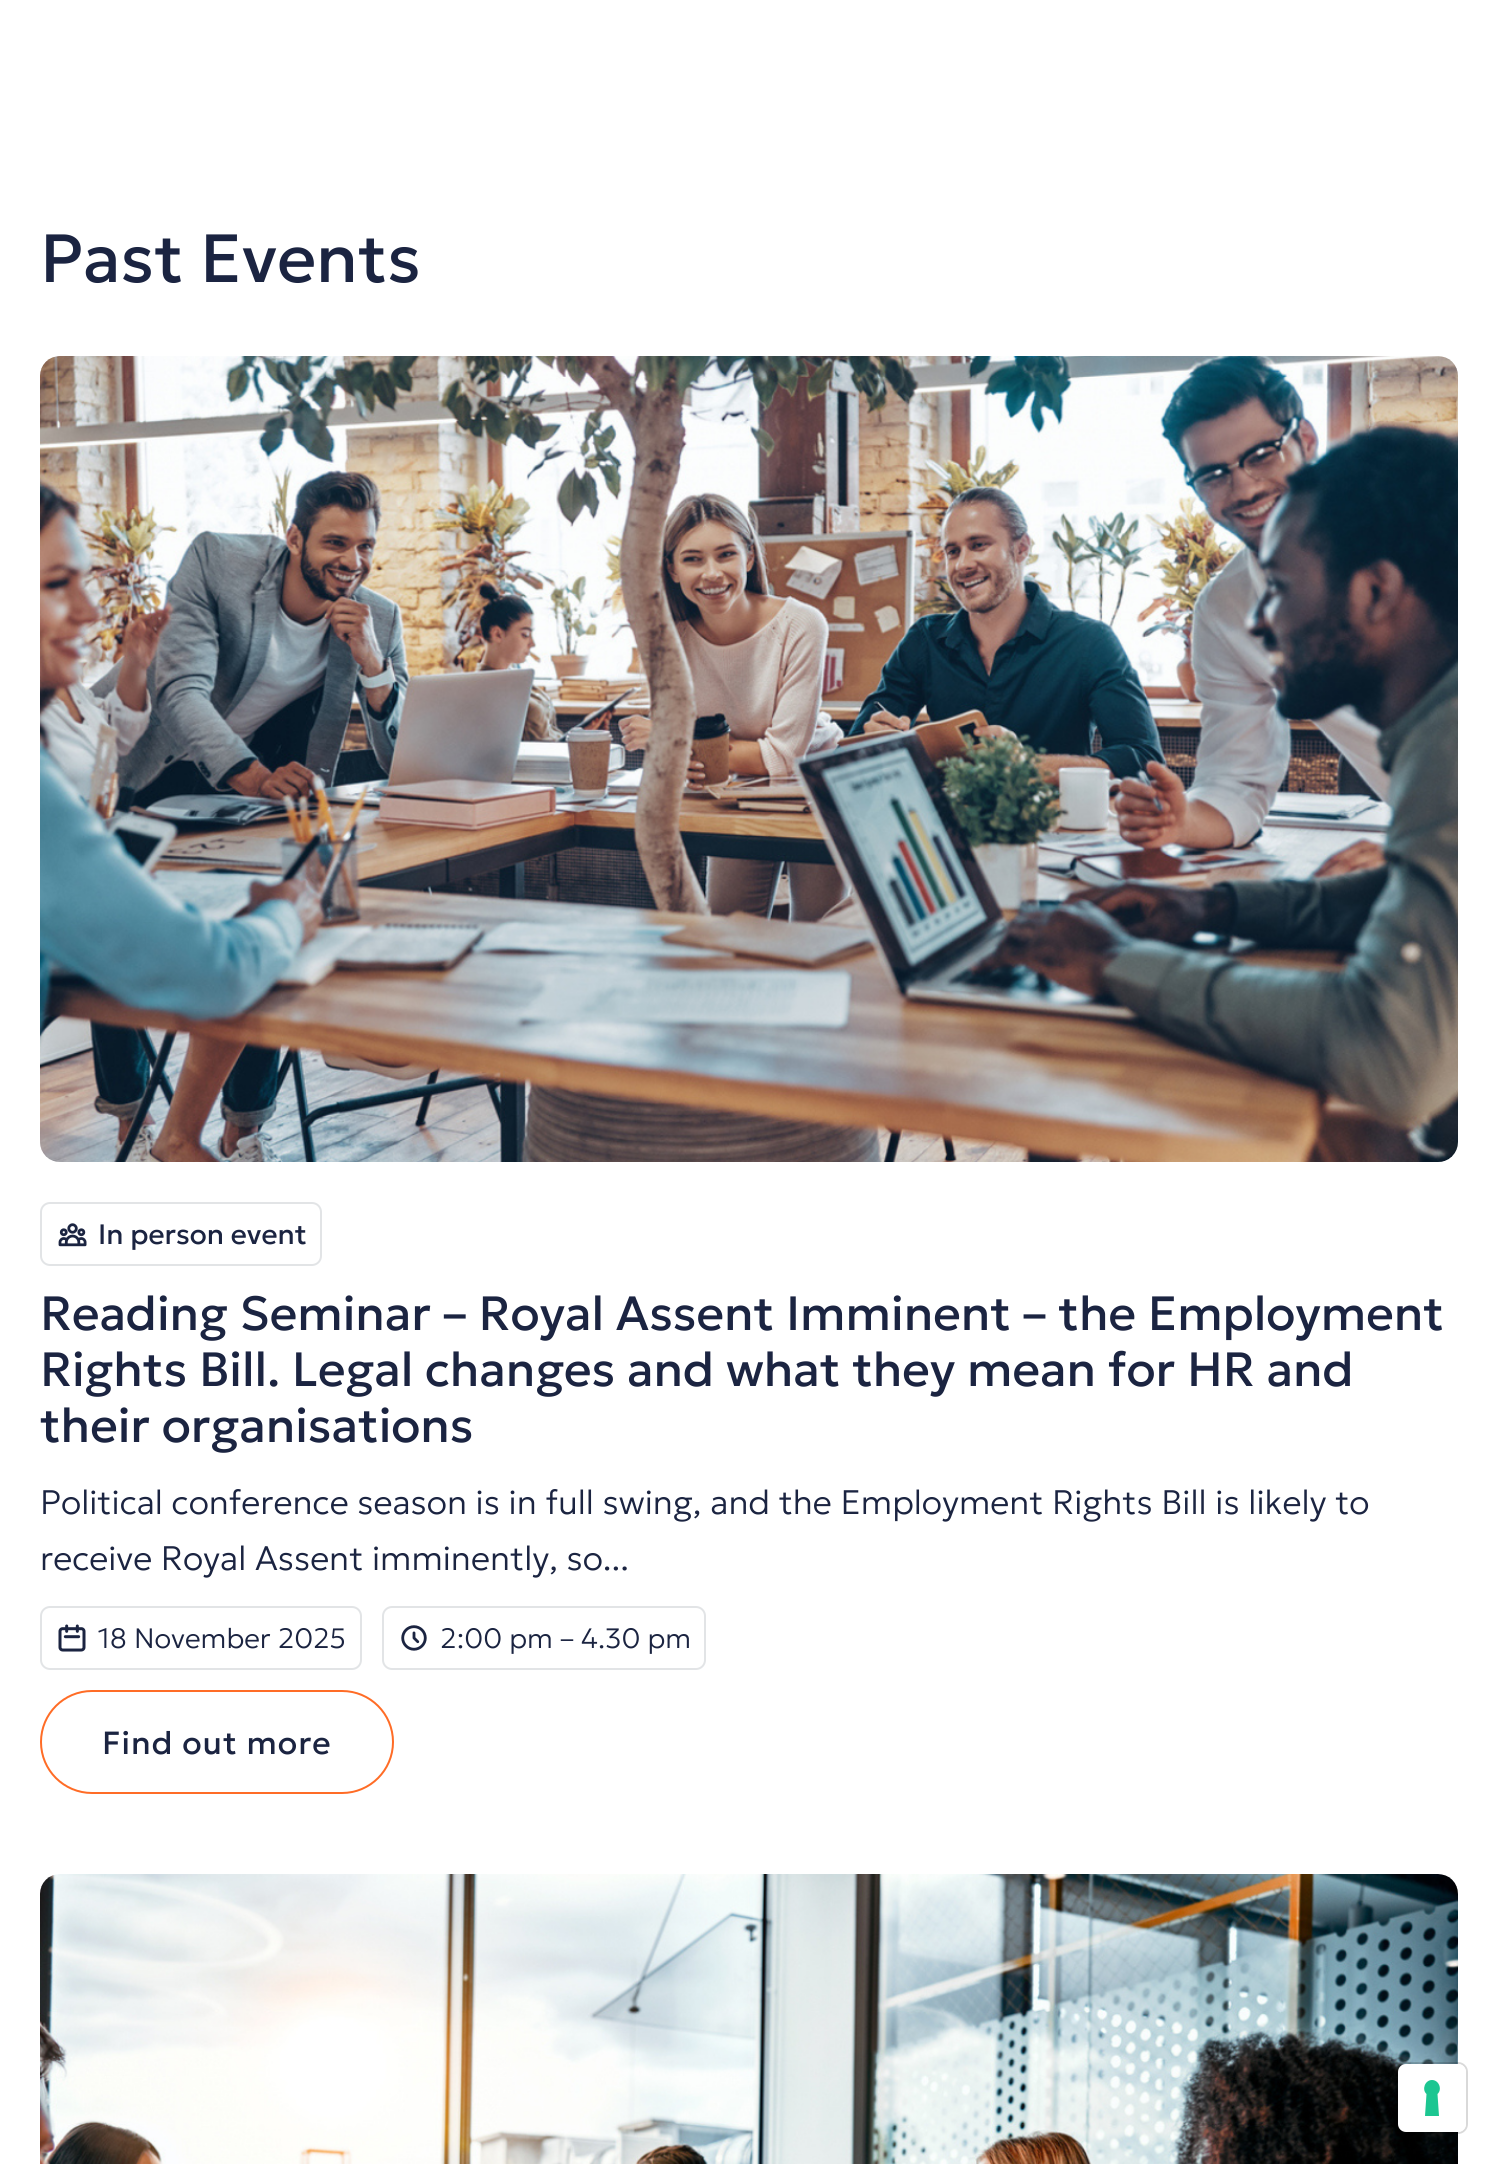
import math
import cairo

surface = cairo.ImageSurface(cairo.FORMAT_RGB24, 1497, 2164)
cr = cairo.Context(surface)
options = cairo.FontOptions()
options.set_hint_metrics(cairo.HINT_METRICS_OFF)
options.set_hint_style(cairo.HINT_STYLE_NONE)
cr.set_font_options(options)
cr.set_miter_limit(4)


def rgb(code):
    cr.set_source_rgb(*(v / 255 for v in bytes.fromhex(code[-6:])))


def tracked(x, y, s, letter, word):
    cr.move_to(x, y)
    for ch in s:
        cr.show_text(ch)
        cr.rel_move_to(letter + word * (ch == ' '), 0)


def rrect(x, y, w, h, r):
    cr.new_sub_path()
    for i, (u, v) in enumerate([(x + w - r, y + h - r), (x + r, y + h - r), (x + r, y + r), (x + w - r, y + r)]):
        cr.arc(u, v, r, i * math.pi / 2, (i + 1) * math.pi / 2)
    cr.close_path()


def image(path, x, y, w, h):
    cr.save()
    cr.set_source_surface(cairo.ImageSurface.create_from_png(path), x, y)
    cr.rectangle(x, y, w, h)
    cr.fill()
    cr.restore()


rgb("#ffffff")
cr.paint()
image("img/1.png", 40, 356, 1418, 806)
rrect(41, 1203, 280, 62, 9)
rgb("#e2e4e6")
cr.stroke()
image("img/2.png", 58, 1223, 29, 24)
rrect(41, 1607, 320, 62, 9)
cr.stroke()
image("img/3.png", 58, 1624, 28, 28)
rrect(383, 1607, 322, 62, 9)
cr.stroke()
image("img/4.png", 401, 1625, 26, 26)
rrect(41, 1691, 352, 102, 51)
rgb("#ff6c26")
cr.stroke()
image("img/5.png", 40, 1874, 1418, 290)
rrect(1397, 2063, 70, 70, 9)
cr.set_source_rgba(0, 0, 0, 0.15)
cr.stroke()
rgb("#ffffff")
rrect(1398, 2064, 68, 68, 8)
cr.fill()
rgb("#1cc691")
cr.set_fill_rule(cairo.FILL_RULE_EVEN_ODD)
cr.new_path()
cr.move_to(1432, 2080)
cr.curve_to(1439, 2080, 1442.5, 2089.5, 1437.5, 2094)
cr.line_to(1439, 2116)
cr.line_to(1425, 2116)
cr.line_to(1426.5, 2094)
cr.curve_to(1421.5, 2089.5, 1425, 2080, 1432, 2080)
cr.close_path()
cr.fill()
cr.select_font_face("Geologica")
cr.set_font_size(68)
rgb("#1b2441")
cr.move_to(40, 282)
cr.show_text("Past Events")
cr.set_font_size(28)
cr.move_to(98, 1244)
cr.show_text("In person event")
cr.set_font_size(48)
for x, y, s in [
    (40, 1330, "Reading Seminar – Royal Assent Imminent – the Employment"),
    (40, 1386, "Rights Bill. Legal changes and what they mean for HR and"),
    (40, 1442, "their organisations"),
]:
    cr.move_to(x, y)
    cr.show_text(s)
cr.select_font_face("Geologica ExtraLight")
cr.set_font_size(34)
cr.move_to(40, 1514)
cr.show_text("Political conference season is in full swing, and the Employment Rights Bill is likely to")
cr.move_to(40, 1570)
cr.show_text("receive Royal Assent imminently, so...")
cr.set_font_size(28)
cr.move_to(98, 1648)
cr.show_text("18 November 2025")
cr.move_to(440, 1648)
cr.show_text("2:00 pm – 4.30 pm")
cr.select_font_face("Geologica")
cr.set_font_size(32)
tracked(102, 1754, "Find out more", 1, 0)
surface.write_to_png("page.png")
